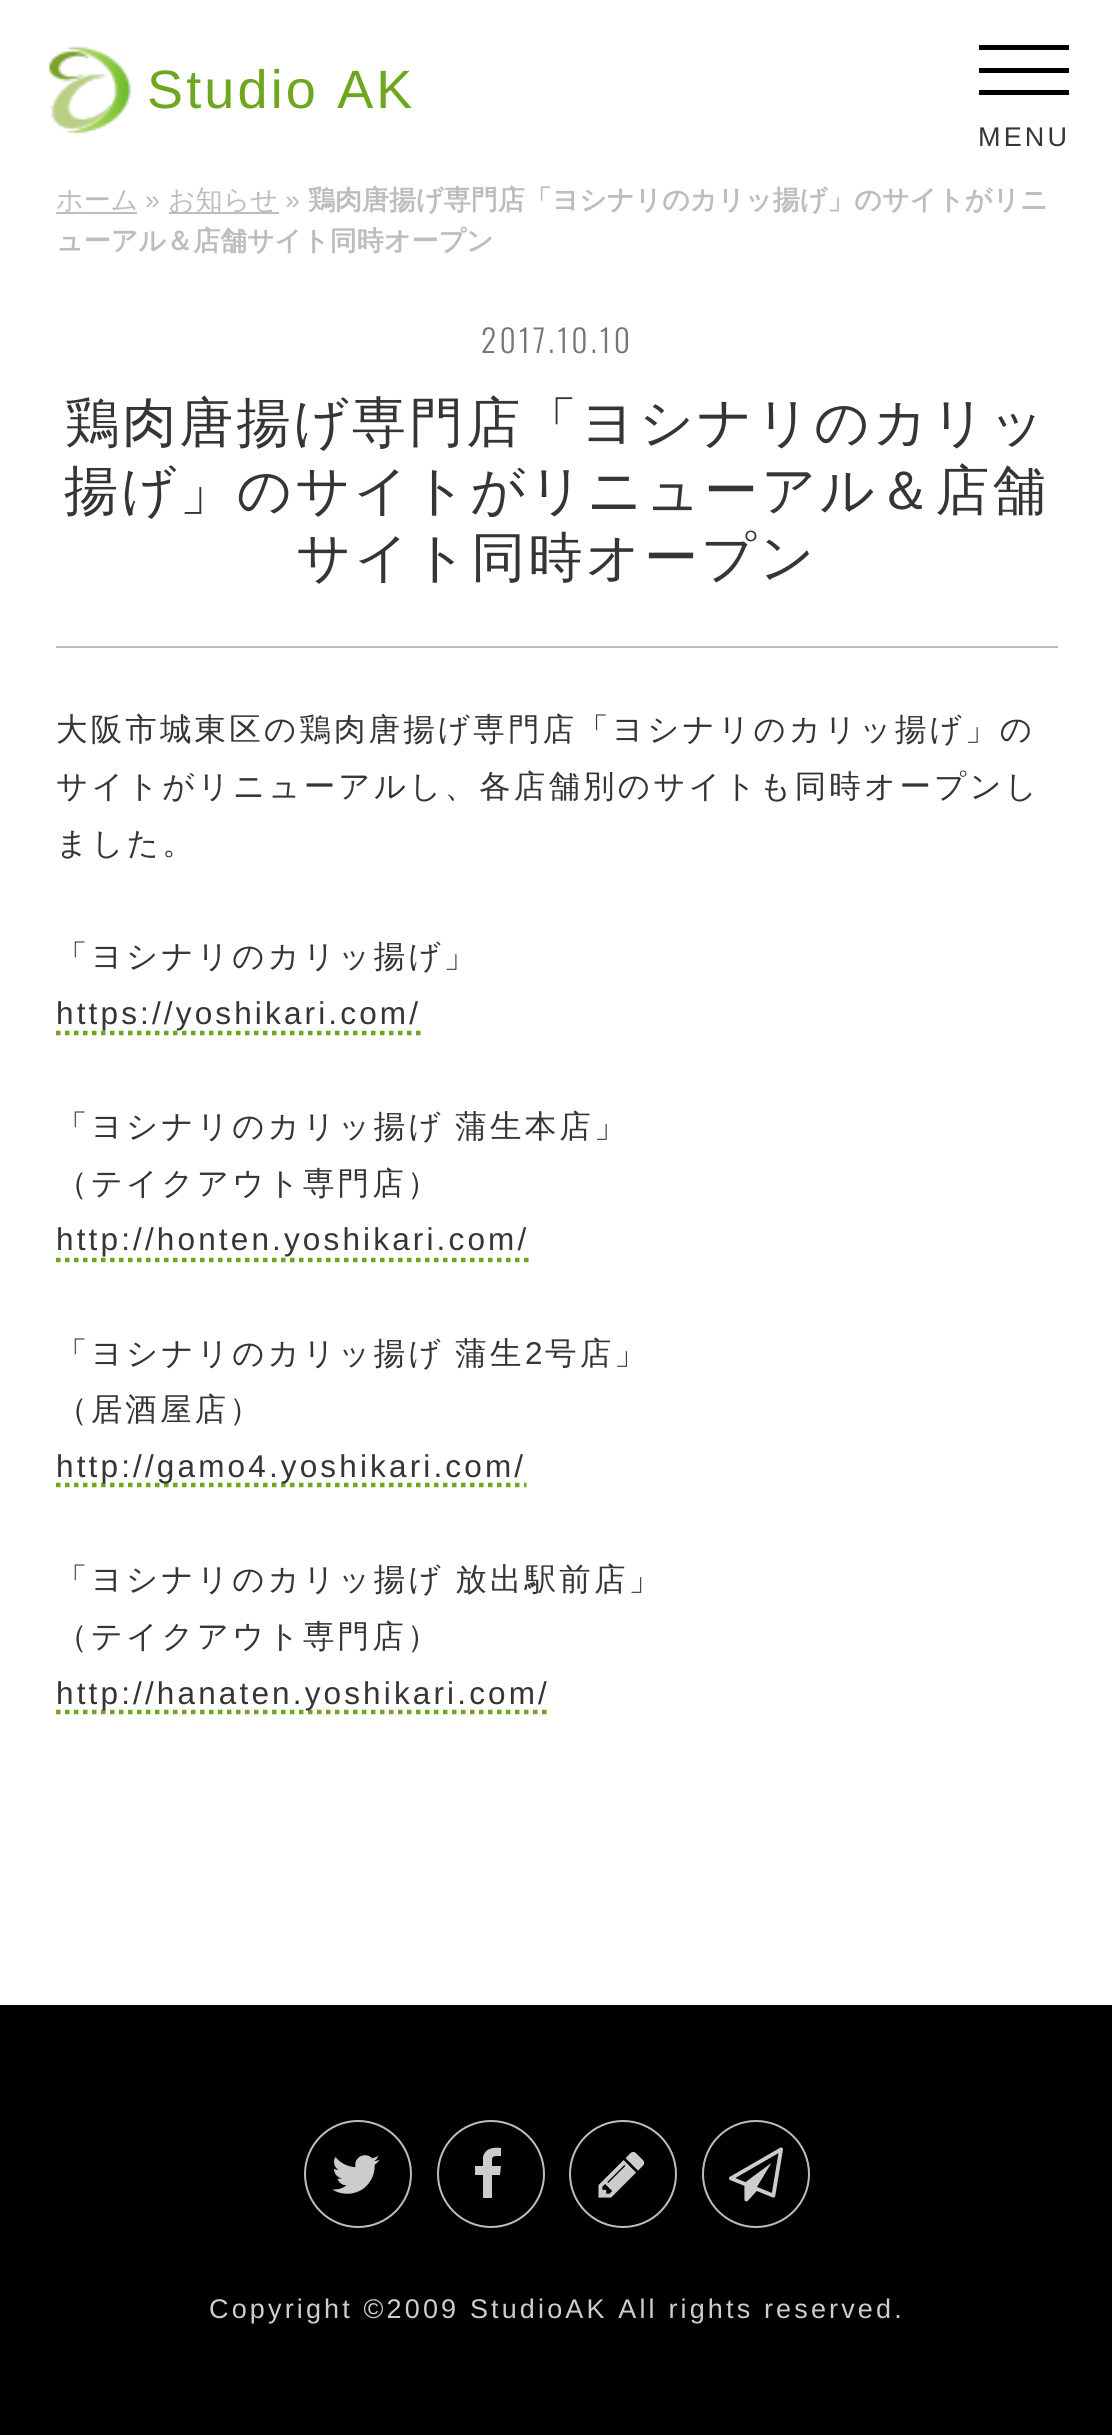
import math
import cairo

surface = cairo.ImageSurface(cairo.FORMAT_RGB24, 1112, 2435)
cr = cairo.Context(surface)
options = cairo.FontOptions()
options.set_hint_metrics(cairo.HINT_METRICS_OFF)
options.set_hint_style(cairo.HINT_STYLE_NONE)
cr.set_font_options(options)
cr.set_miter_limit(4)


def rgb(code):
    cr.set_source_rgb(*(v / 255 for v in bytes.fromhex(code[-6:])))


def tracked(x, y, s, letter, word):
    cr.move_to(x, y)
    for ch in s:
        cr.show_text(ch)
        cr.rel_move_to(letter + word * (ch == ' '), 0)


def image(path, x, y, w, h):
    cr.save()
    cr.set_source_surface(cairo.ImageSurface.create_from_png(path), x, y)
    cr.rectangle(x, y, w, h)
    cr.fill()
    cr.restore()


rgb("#ffffff")
cr.paint()
image("img/1.png", 49, 46, 83, 88)
for x, y, w, h, color in [
    (979, 45, 90, 5, "#000000"),
    (979, 68, 90, 5, "#000000"),
    (979, 90, 90, 5, "#000000"),
    (56, 212, 81, 2, "#bdbdbd"),
    (169, 212, 110, 2, "#bdbdbd"),
    (56, 646, 1002, 2, "#bdbdbd"),
]:
    rgb(color)
    cr.rectangle(x, y, w, h)
    cr.fill()
cr.new_path()
cr.move_to(56, 1033)
cr.line_to(421, 1033)
rgb("#6ea61f")
cr.set_line_width(4.5)
cr.set_dash([4.5, 4.5])
cr.stroke()
cr.new_path()
cr.move_to(56, 1260)
cr.line_to(529, 1260)
cr.stroke()
cr.new_path()
cr.move_to(56, 1485)
cr.line_to(526.5, 1485)
cr.stroke()
cr.new_path()
cr.move_to(56, 1712)
cr.line_to(549, 1712)
cr.stroke()
rgb("#000000")
cr.rectangle(0, 2005, 1112, 430)
cr.fill()
cr.arc(358, 2174, 53, 0, 2 * math.pi)
rgb("#bdbdbd")
cr.set_line_width(2)
cr.set_dash([])
cr.stroke()
image("img/2.png", 332, 2155, 48, 39)
cr.arc(491, 2174, 53, 0, 2 * math.pi)
cr.stroke()
rgb("#cdcdcd")
cr.new_path()
cr.move_to(501, 2148)
cr.line_to(501, 2156)
cr.curve_to(491, 2156, 492, 2156, 492, 2166)
cr.line_to(501, 2166)
cr.line_to(500, 2175)
cr.line_to(492, 2175)
cr.line_to(492, 2198)
cr.line_to(483, 2198)
cr.line_to(483, 2175)
cr.line_to(475, 2175)
cr.line_to(475, 2166)
cr.line_to(483, 2166)
cr.line_to(483, 2157)
cr.curve_to(485, 2148, 494, 2147, 501, 2148)
cr.close_path()
cr.fill()
cr.arc(623, 2174, 53, 0, 2 * math.pi)
rgb("#bdbdbd")
cr.stroke()
image("img/3.png", 598, 2152, 47, 46)
cr.arc(756, 2174, 53, 0, 2 * math.pi)
cr.stroke()
image("img/4.png", 729, 2147, 54, 55)
cr.select_font_face("Liberation Sans")
cr.set_font_size(54)
rgb("#6ea61f")
tracked(147, 108, "Studio AK", 3.15, 0)
cr.set_font_size(27)
rgb("#353535")
tracked(978, 146, "MENU", 3.15, 0)
cr.select_font_face("WenQuanYi Zen Hei Medium")
rgb("#bdbdbd")
cr.move_to(56, 209)
cr.show_text("ホーム")
cr.select_font_face("Liberation Sans")
cr.move_to(145, 209)
cr.show_text("»")
cr.select_font_face("WenQuanYi Zen Hei Medium")
cr.move_to(168, 209)
cr.show_text("お知らせ")
cr.select_font_face("Liberation Sans")
cr.move_to(285, 209)
cr.show_text("»")
cr.select_font_face("WenQuanYi Zen Hei", cairo.FONT_SLANT_NORMAL, cairo.FONT_WEIGHT_BOLD)
cr.move_to(308, 209)
cr.show_text("鶏肉唐揚げ専門店「ヨシナリのカリッ揚げ」のサイトがリニ")
cr.move_to(56, 250)
cr.show_text("ューアル＆店舗サイト同時オープン")
cr.select_font_face("Oswald Light")
cr.set_font_size(31.5)
rgb("#757575")
tracked(481, 353, "2017.10.10", 3.15, 0)
cr.select_font_face("WenQuanYi Zen Hei Medium")
cr.set_font_size(54)
rgb("#353535")
for x, y, s in [
    (65, 441, "鶏肉唐揚げ専門店「ヨシナリのカリッ"),
    (64, 509, "揚げ」のサイトがリニューアル＆店舗"),
    (296, 576, "サイト同時オープン"),
]:
    tracked(x, y, s, 3.15, 0)
cr.set_font_size(31.5)
for x, y, s in [
    (56, 740, "大阪市城東区の鶏肉唐揚げ専門店「ヨシナリのカリッ揚げ」の"),
    (56, 797, "サイトがリニューアルし、各店舗別のサイトも同時オープンし"),
    (56, 854, "ました。"),
    (56, 967, "「ヨシナリのカリッ揚げ」"),
]:
    tracked(x, y, s, 3.15, 0)
cr.select_font_face("Liberation Sans")
tracked(56, 1024, "https://yoshikari.com/", 3.15, 0)
cr.select_font_face("WenQuanYi Zen Hei Medium")
tracked(56, 1137, "「ヨシナリのカリッ揚げ 蒲生本店」", 3.15, -1)
tracked(56, 1194, "（テイクアウト専門店）", 3.15, 0)
cr.select_font_face("Liberation Sans")
tracked(56, 1250, "http://honten.yoshikari.com/", 3.15, 0)
cr.select_font_face("WenQuanYi Zen Hei Medium")
tracked(56, 1364, "「ヨシナリのカリッ揚げ 蒲生", 3.15, -1)
cr.select_font_face("Liberation Sans")
tracked(525, 1364, "2", 3.15, 0)
cr.select_font_face("WenQuanYi Zen Hei Medium")
tracked(545, 1364, "号店」", 3.15, 0)
tracked(56, 1420, "（居酒屋店）", 3.15, 0)
cr.select_font_face("Liberation Sans")
tracked(56, 1477, "http://gamo4.yoshikari.com/", 3.15, 0)
cr.select_font_face("WenQuanYi Zen Hei Medium")
tracked(56, 1590, "「ヨシナリのカリッ揚げ 放出駅前店」", 3.15, -1)
tracked(56, 1647, "（テイクアウト専門店）", 3.15, 0)
cr.select_font_face("Liberation Sans")
tracked(56, 1704, "http://hanaten.yoshikari.com/", 3.15, 0)
cr.set_font_size(27)
rgb("#cdcdcd")
tracked(209, 2318, "Copyright ©2009 StudioAK All rights reserved.", 3.15, 0)
surface.write_to_png("page.png")
